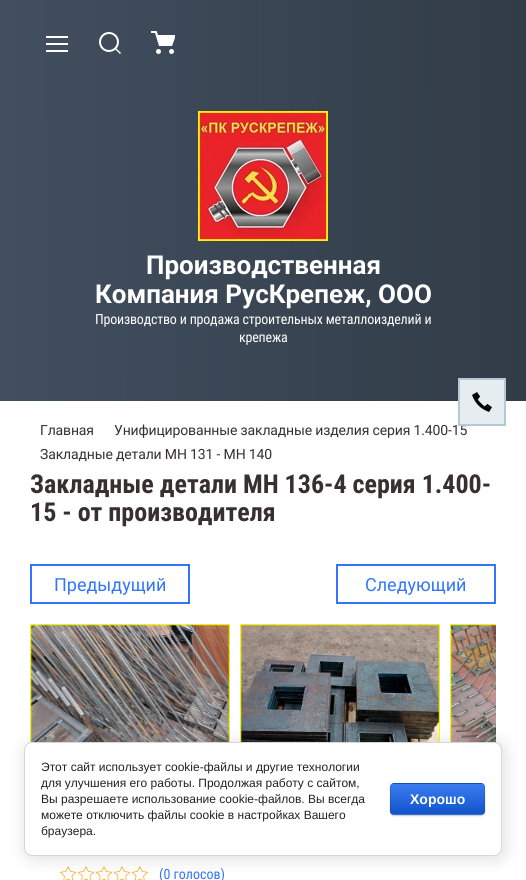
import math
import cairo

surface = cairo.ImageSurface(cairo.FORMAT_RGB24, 526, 880)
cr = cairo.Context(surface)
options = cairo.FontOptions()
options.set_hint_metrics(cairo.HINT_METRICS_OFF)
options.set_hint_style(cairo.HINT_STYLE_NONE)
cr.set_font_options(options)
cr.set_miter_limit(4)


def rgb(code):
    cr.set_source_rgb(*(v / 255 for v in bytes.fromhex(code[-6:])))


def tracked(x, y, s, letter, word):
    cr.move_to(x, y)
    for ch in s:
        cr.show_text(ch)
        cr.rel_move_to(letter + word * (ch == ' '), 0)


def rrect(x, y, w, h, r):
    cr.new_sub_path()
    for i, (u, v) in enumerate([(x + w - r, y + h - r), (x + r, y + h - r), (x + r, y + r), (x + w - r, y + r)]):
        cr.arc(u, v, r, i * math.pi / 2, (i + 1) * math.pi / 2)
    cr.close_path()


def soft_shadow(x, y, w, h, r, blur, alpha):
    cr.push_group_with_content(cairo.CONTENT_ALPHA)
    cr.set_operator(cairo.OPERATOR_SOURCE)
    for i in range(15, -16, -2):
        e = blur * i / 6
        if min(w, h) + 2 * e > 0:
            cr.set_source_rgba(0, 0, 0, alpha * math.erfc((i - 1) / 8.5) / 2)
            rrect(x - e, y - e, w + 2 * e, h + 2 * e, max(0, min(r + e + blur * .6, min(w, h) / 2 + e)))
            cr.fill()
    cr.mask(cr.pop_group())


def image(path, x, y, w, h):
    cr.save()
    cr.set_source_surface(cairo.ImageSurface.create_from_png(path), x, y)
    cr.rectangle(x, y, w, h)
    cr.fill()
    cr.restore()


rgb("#ffffff")
cr.paint()
gradient = cairo.LinearGradient(0, 201, 526, 200)
gradient.add_color_stop_rgba(0, 0.259, 0.31, 0.376, 1)
gradient.add_color_stop_rgba(1, 0.192, 0.235, 0.278, 1)
cr.set_source(gradient)
cr.rectangle(0, 0, 526, 401)
cr.fill()
image("img/1.png", 46, 36, 22, 16)
image("img/2.png", 99, 32, 22, 22)
image("img/3.png", 151, 31, 24, 23)
image("img/4.png", 198, 111, 130, 130)
rgb("#e6edf1")
cr.rectangle(460, 380, 44, 44)
cr.fill()
image("img/5.png", 472, 392, 20, 20)
cr.rectangle(31, 565, 158, 38)
rgb("#3375fc")
cr.stroke()
cr.rectangle(337, 565, 158, 38)
cr.stroke()
image("img/6.png", 30, 624, 200, 119)
image("img/7.png", 240, 624, 200, 118)
image("img/8.png", 450, 624, 46, 119)
image("img/9.png", 60, 866, 88, 14)
rgb("#000000")
soft_shadow(26, 744, 478, 114, 8, 9, 0.14)
rgb("#ffffff")
rrect(24.5, 742.5, 477, 113, 7.5)
cr.fill_preserve()
rgb("#d6d6d6")
cr.set_line_width(1)
cr.stroke()
rgb("#000000")
soft_shadow(390, 784, 95, 32, 4, 0.5, 0.2)
cr.save()
rrect(390, 783, 95, 32, 4)
cr.clip()
gradient = cairo.LinearGradient(438, 754, 438, 784)
gradient.add_color_stop_rgba(0, 0.231, 0.486, 0.937, 1)
gradient.add_color_stop_rgba(1, 0.067, 0.333, 0.8, 1)
cr.set_source(gradient)
cr.rectangle(390, 783, 95, 1)
cr.fill()
gradient = cairo.LinearGradient(438, 784, 438, 814)
gradient.add_color_stop_rgba(0, 0.231, 0.486, 0.937, 1)
gradient.add_color_stop_rgba(1, 0.067, 0.333, 0.8, 1)
cr.set_source(gradient)
cr.rectangle(390, 784, 95, 30)
cr.fill()
gradient = cairo.LinearGradient(438, 814, 438, 844)
gradient.add_color_stop_rgba(0, 0.231, 0.486, 0.937, 1)
gradient.add_color_stop_rgba(1, 0.067, 0.333, 0.8, 1)
cr.set_source(gradient)
cr.rectangle(390, 814, 95, 1)
cr.fill()
cr.restore()
rrect(390.5, 783.5, 94, 31, 3.5)
cr.set_source_rgba(0, 0, 0, 0.1)
cr.stroke()
cr.select_font_face("Roboto", cairo.FONT_SLANT_NORMAL, cairo.FONT_WEIGHT_BOLD)
cr.set_font_size(26)
rgb("#ffffff")
cr.move_to(146, 274)
cr.show_text("Производственная")
cr.move_to(95, 303)
cr.show_text("Компания РусКрепеж, ООО")
cr.select_font_face("Roboto Condensed")
cr.set_font_size(14)
tracked(95, 324, "Производство и продажа строительных металлоизделий и", -0.2, 0)
tracked(239, 342, "крепежа", -0.2, 0)
cr.select_font_face("Roboto")
rgb("#383030")
tracked(40, 435, "Главная", -0.15, 0)
tracked(114, 435, "Унифицированные закладные изделия серия 1.400-15", -0.15, 0)
cr.rectangle(459, 379, 46, 46)
rgb("#b4c8d5")
cr.set_line_width(2)
cr.stroke()
rgb("#383030")
tracked(40, 459, "Закладные детали МН 131 - МН 140", -0.15, 0)
cr.select_font_face("Roboto Condensed", cairo.FONT_SLANT_NORMAL, cairo.FONT_WEIGHT_BOLD)
cr.set_font_size(26)
cr.move_to(30, 493)
cr.show_text("Закладные детали МН 136-4 серия 1.400-")
cr.move_to(30, 521)
cr.show_text("15 - от производителя")
cr.select_font_face("Roboto")
cr.set_font_size(18)
rgb("#3375fc")
cr.move_to(54, 591)
cr.show_text("Предыдущий")
cr.move_to(365, 591)
cr.show_text("Следующий")
cr.select_font_face("Roboto Condensed")
cr.set_font_size(14)
cr.move_to(159, 879)
cr.show_text("(0 голосов)")
cr.select_font_face("Liberation Sans")
cr.set_font_size(12)
rgb("#212121")
for x, y, s in [
    (41, 771, "Этот сайт использует cookie-файлы и другие технологии"),
    (41, 787, "для улучшения его работы. Продолжая работу с сайтом,"),
    (41, 803, "Вы разрешаете использование cookie-файлов. Вы всегда"),
    (41, 819, "можете отключить файлы cookie в настройках Вашего"),
    (41, 835, "браузера."),
]:
    cr.move_to(x, y)
    cr.show_text(s)
cr.select_font_face("Liberation Sans", cairo.FONT_SLANT_NORMAL, cairo.FONT_WEIGHT_BOLD)
cr.set_font_size(14)
rgb("#ffffff")
cr.move_to(410, 804)
cr.show_text("Хорошо")
surface.write_to_png("page.png")
